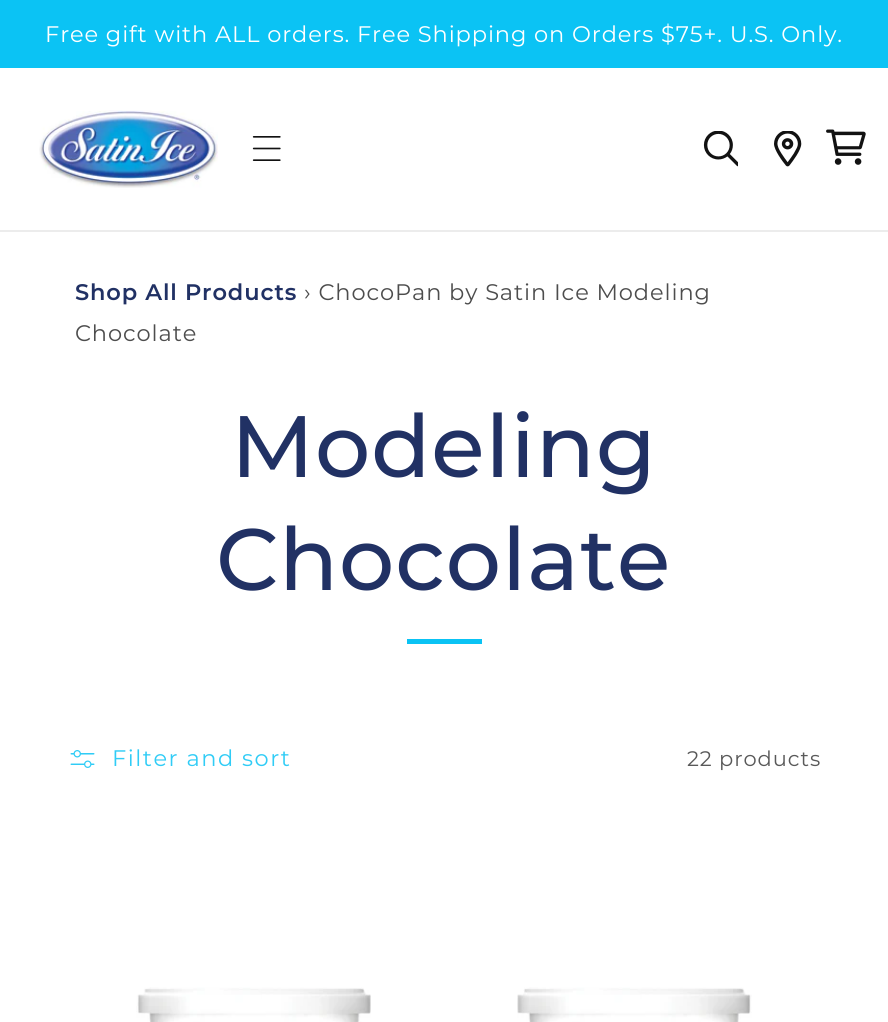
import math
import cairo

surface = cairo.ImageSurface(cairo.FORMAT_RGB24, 888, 1022)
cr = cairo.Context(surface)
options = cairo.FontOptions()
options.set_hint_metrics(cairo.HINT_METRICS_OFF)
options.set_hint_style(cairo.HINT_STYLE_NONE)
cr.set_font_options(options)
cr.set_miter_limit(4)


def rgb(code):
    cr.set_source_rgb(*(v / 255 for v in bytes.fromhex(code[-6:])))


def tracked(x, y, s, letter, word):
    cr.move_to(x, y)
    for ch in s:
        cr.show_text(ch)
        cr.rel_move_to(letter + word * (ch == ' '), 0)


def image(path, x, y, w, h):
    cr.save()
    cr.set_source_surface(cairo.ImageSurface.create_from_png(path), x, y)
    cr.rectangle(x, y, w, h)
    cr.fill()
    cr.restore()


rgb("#ffffff")
cr.paint()
rgb("#0bc3f4")
cr.rectangle(0, 0, 888, 68)
cr.fill()
rgb("#ececec")
cr.rectangle(0, 230, 888, 2)
cr.fill()
image("img/1.png", 39, 110, 179, 78)
image("img/2.png", 252, 136, 29, 25)
image("img/3.png", 703, 131, 35, 36)
image("img/4.png", 774, 131, 28, 36)
image("img/5.png", 826, 129, 40, 36)
rgb("#0ac3f4")
cr.rectangle(407, 639, 75, 5)
cr.fill()
image("img/6.png", 70, 750, 25, 18)
image("img/7.png", 136, 987, 235, 35)
image("img/8.png", 517, 987, 235, 35)
cr.select_font_face("Montserrat")
cr.set_font_size(22.5)
rgb("#ffffff")
tracked(45, 42, "Free gift with ALL orders. Free Shipping on Orders $75+. U.S. Only.", 0.9, 0)
cr.select_font_face("Montserrat SemiBold")
rgb("#213164")
tracked(75, 300, "Shop All Products", 0.9, 0)
cr.select_font_face("Montserrat")
rgb("#4d4d4d")
tracked(304, 300, "› ChocoPan by Satin Ice Modeling", 0.9, 0)
tracked(75, 341, "Chocolate", 0.9, 0)
cr.select_font_face("Montserrat Medium")
cr.set_font_size(87)
rgb("#213164")
tracked(231, 477, "Modeling", 0.9, 0)
tracked(216, 590, "Chocolate", 0.9, 0)
cr.select_font_face("Montserrat")
cr.set_font_size(22.5)
rgb("#30ccf6")
tracked(112, 766, "Filter and sort", 1.5, 0)
cr.set_font_size(21)
rgb("#595959")
tracked(687, 766, "22 products", 0.9, 0)
surface.write_to_png("page.png")
